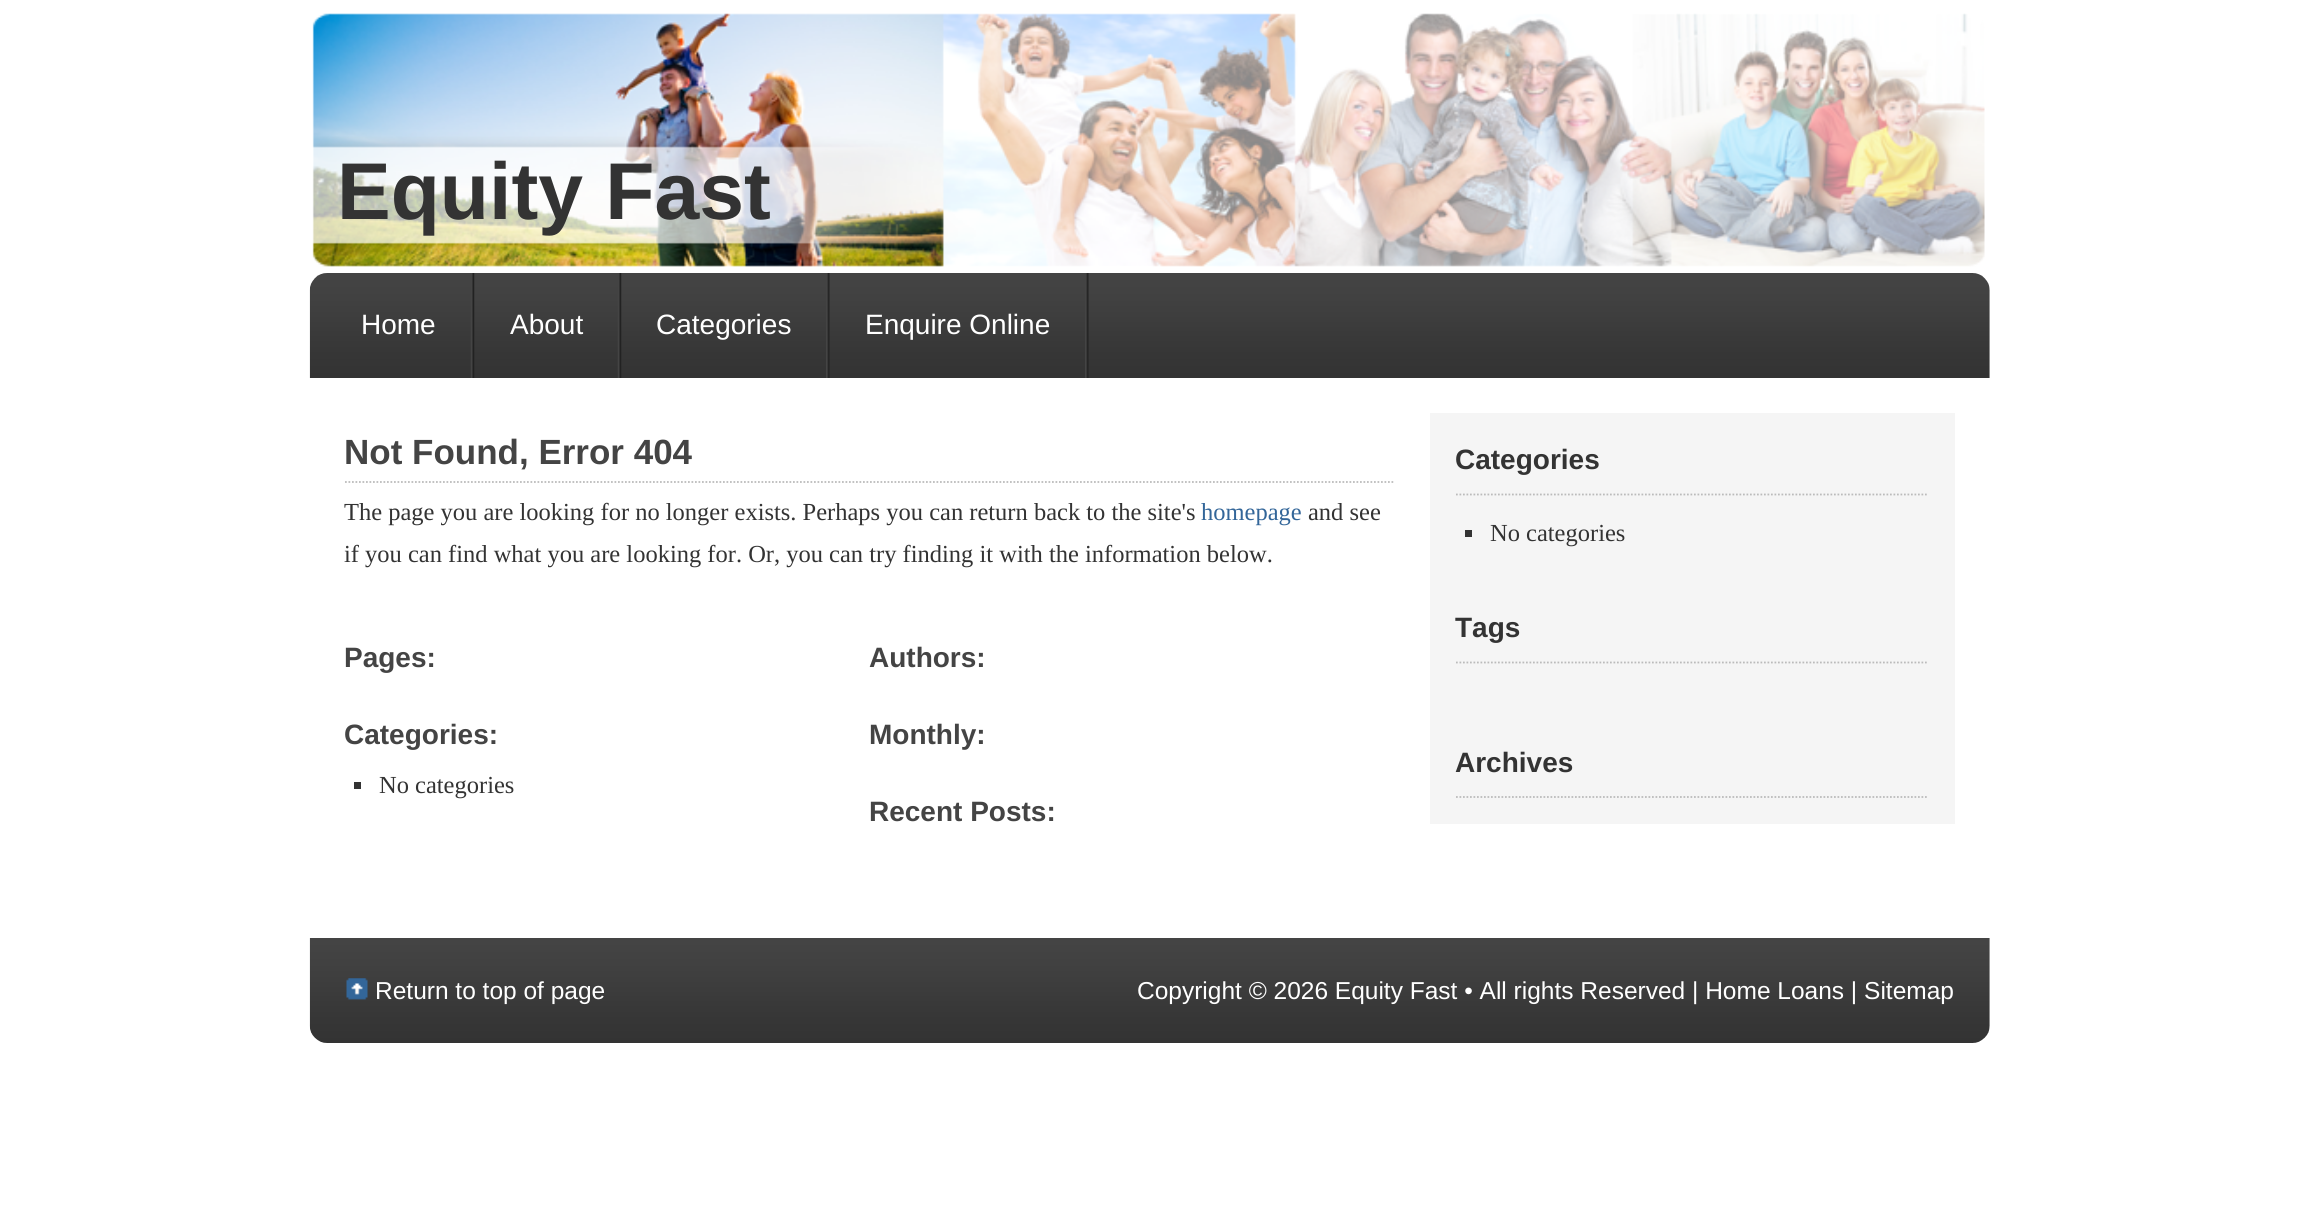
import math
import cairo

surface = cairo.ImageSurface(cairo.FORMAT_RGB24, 2297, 1222)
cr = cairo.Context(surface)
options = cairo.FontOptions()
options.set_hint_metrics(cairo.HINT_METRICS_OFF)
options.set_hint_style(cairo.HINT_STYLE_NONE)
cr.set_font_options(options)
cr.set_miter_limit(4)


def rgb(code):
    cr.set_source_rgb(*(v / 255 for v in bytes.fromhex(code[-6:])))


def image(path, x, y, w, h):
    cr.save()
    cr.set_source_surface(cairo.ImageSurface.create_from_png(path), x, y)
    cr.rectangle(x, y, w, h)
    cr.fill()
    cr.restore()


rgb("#ffffff")
cr.paint()
image("img/1.png", 312, 13, 1673, 254)
image("img/2.png", 309, 273, 1681, 105)
image("img/3.png", 470, 273, 5, 105)
image("img/3.png", 617, 273, 5, 105)
image("img/4.png", 826, 273, 4, 105)
image("img/4.png", 1085, 273, 4, 105)
cr.new_path()
cr.move_to(345, 482)
cr.line_to(1395, 482)
rgb("#bbbbbb")
cr.set_line_width(1.8)
cr.set_dash([1.75, 1.75])
cr.stroke()
rgb("#333333")
cr.rectangle(354, 782, 7, 7)
cr.fill()
rgb("#f5f5f5")
cr.rectangle(1430, 413, 525, 411)
cr.fill()
cr.new_path()
cr.move_to(1456, 494.5)
cr.line_to(1928.5, 494.5)
rgb("#bbbbbb")
cr.stroke()
rgb("#333333")
cr.rectangle(1465, 530, 7, 7)
cr.fill()
cr.new_path()
cr.move_to(1456, 662.5)
cr.line_to(1928.5, 662.5)
rgb("#bbbbbb")
cr.stroke()
cr.new_path()
cr.move_to(1456, 797)
cr.line_to(1928.5, 797)
cr.stroke()
image("img/5.png", 309, 938, 1681, 105)
image("img/6.png", 346, 978, 22, 22)
cr.select_font_face("Liberation Sans", cairo.FONT_SLANT_NORMAL, cairo.FONT_WEIGHT_BOLD)
cr.set_font_size(80.5)
rgb("#333333")
cr.move_to(337, 219)
cr.show_text("Equity Fast")
cr.select_font_face("Liberation Sans")
cr.set_font_size(28)
rgb("#ffffff")
for x, y, s in [
    (361, 334, "Home"),
    (510, 334, "About"),
    (656, 334, "Categories"),
    (865, 334, "Enquire Online"),
]:
    cr.move_to(x, y)
    cr.show_text(s)
cr.select_font_face("Liberation Sans", cairo.FONT_SLANT_NORMAL, cairo.FONT_WEIGHT_BOLD)
cr.set_font_size(35)
rgb("#444444")
cr.move_to(344, 464)
cr.show_text("Not Found, Error 404")
cr.select_font_face("Liberation Serif")
cr.set_font_size(24.5)
rgb("#333333")
cr.move_to(344, 520)
cr.show_text("The page you are looking for no longer exists. Perhaps you can return back to the site's")
rgb("#336699")
cr.move_to(1201, 520)
cr.show_text("homepage")
rgb("#333333")
cr.move_to(1308, 520)
cr.show_text("and see")
cr.move_to(344, 562)
cr.show_text("if you can find what you are looking for. Or, you can try finding it with the information below.")
cr.select_font_face("Liberation Sans", cairo.FONT_SLANT_NORMAL, cairo.FONT_WEIGHT_BOLD)
cr.set_font_size(28)
rgb("#444444")
cr.move_to(344, 667)
cr.show_text("Pages:")
cr.move_to(344, 744)
cr.show_text("Categories:")
cr.select_font_face("Liberation Serif")
cr.set_font_size(24.5)
rgb("#333333")
cr.move_to(379, 793)
cr.show_text("No categories")
cr.select_font_face("Liberation Sans", cairo.FONT_SLANT_NORMAL, cairo.FONT_WEIGHT_BOLD)
cr.set_font_size(28)
rgb("#444444")
for x, y, s in [
    (869, 667, "Authors:"),
    (869, 744, "Monthly:"),
    (869, 821, "Recent Posts:"),
]:
    cr.move_to(x, y)
    cr.show_text(s)
rgb("#333333")
cr.move_to(1455, 469)
cr.show_text("Categories")
cr.select_font_face("Liberation Serif")
cr.set_font_size(24.5)
cr.move_to(1490, 541)
cr.show_text("No categories")
cr.select_font_face("Liberation Sans", cairo.FONT_SLANT_NORMAL, cairo.FONT_WEIGHT_BOLD)
cr.set_font_size(28)
cr.move_to(1455, 637)
cr.show_text("Tags")
cr.move_to(1455, 772)
cr.show_text("Archives")
cr.select_font_face("Liberation Sans")
cr.set_font_size(24.5)
rgb("#ffffff")
cr.move_to(375, 999)
cr.show_text("Return to top of page")
cr.move_to(1137, 999)
cr.show_text("Copyright © 2026 Equity Fast • All rights Reserved | Home Loans | Sitemap")
surface.write_to_png("page.png")
